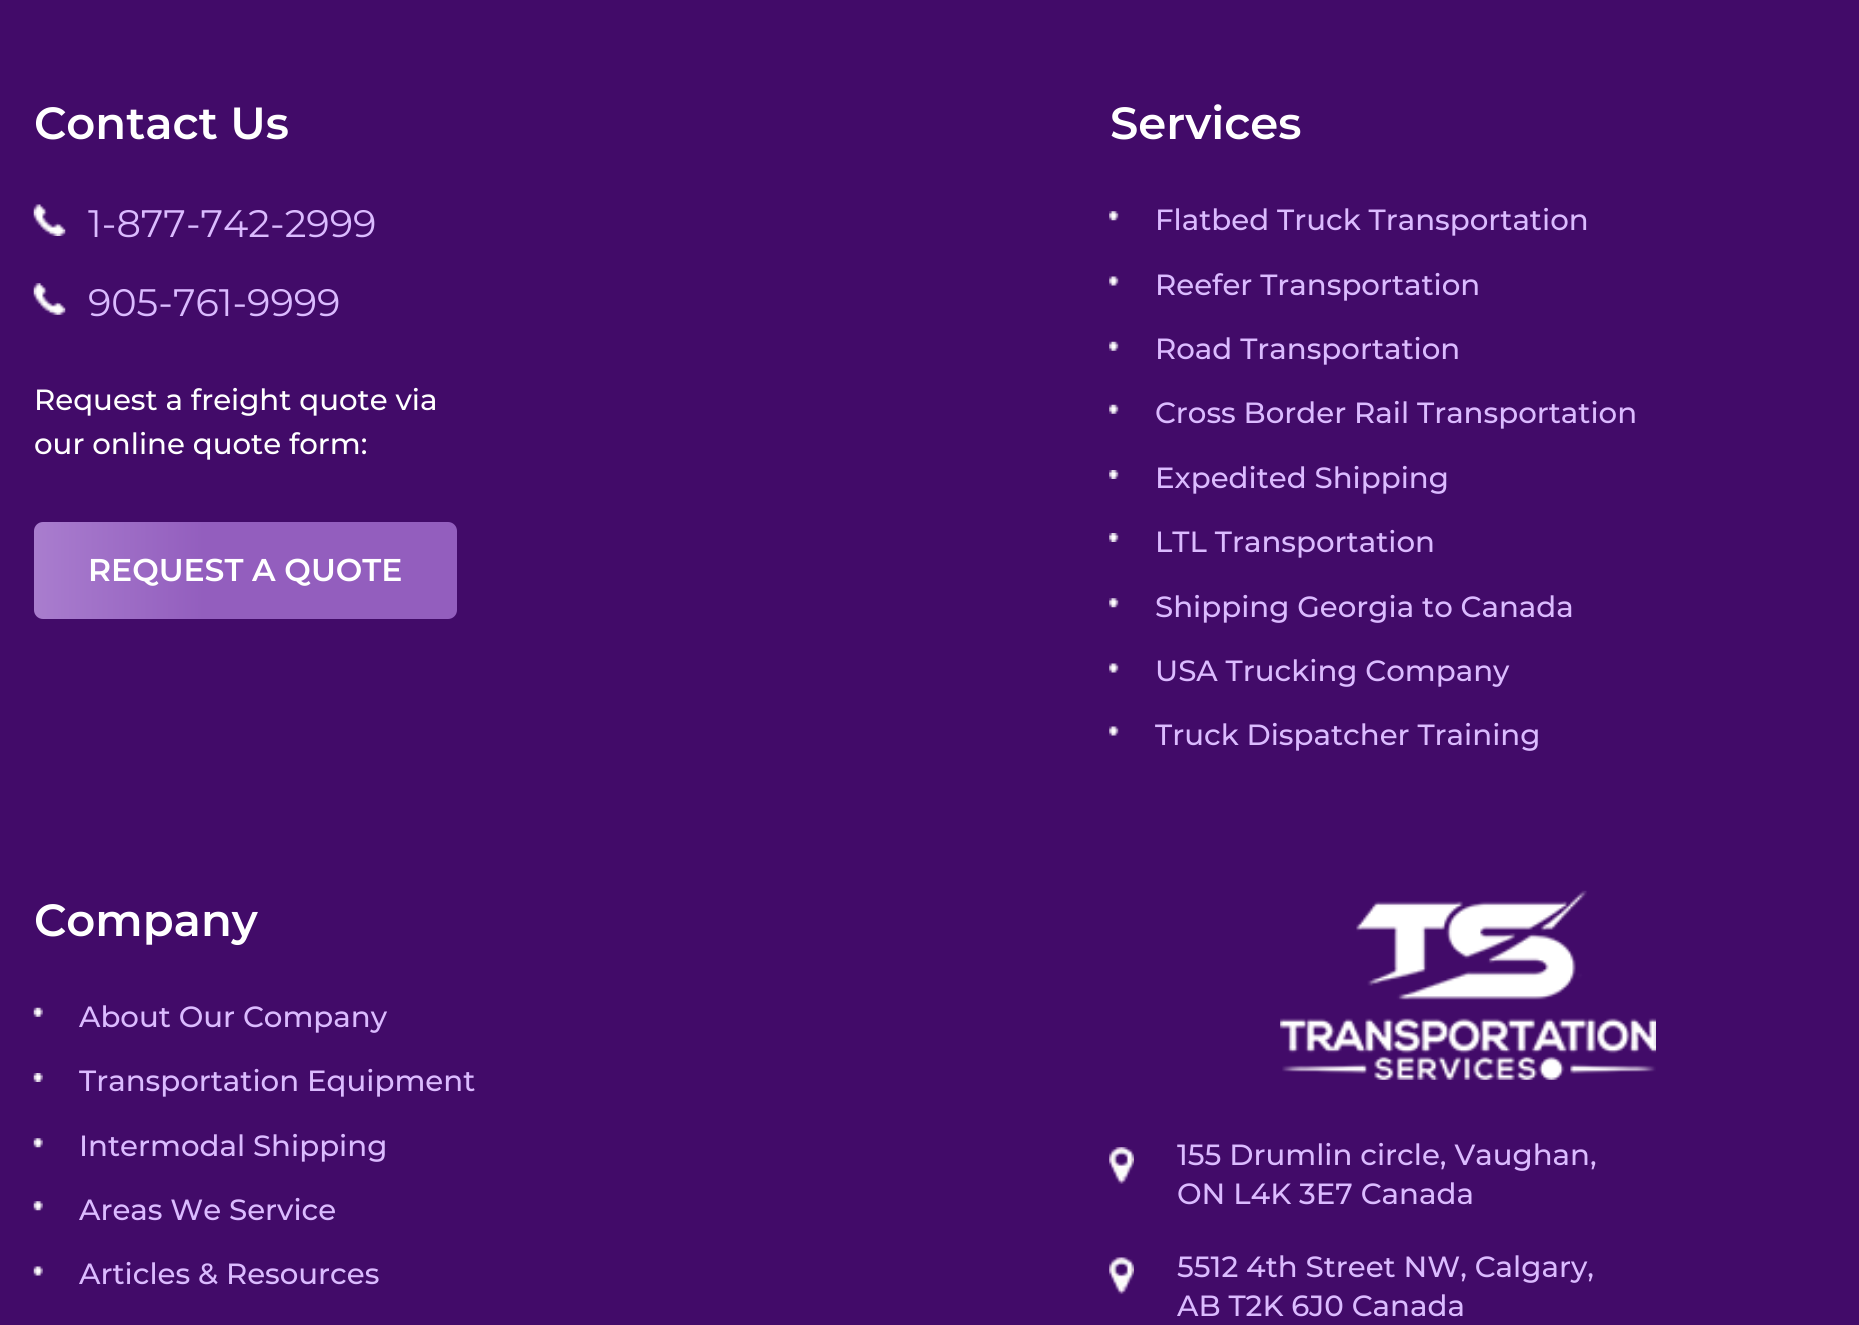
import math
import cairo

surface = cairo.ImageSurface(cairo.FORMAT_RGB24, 1859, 1325)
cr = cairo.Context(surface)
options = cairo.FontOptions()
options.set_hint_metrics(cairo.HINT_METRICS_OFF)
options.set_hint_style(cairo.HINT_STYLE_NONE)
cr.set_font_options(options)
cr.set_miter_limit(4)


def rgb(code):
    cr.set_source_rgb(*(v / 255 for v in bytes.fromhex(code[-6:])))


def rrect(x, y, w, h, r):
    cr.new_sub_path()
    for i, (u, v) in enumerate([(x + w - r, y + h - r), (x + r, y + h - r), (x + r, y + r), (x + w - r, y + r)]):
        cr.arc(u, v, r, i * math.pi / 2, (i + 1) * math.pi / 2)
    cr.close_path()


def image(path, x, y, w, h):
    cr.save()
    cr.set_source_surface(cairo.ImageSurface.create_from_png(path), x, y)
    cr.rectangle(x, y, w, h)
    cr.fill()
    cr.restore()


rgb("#420b69")
cr.paint()
image("img/1.png", 33, 204, 33, 32)
image("img/2.png", 33, 283, 33, 32)
gradient = cairo.LinearGradient(34, 570, 457, 570)
gradient.add_color_stop_rgba(0, 0.663, 0.49, 0.808, 1)
gradient.add_color_stop_rgba(0.4, 0.576, 0.369, 0.745, 1)
cr.set_source(gradient)
rrect(34, 522, 423, 97, 9)
cr.fill()
image("img/3.png", 1109, 211, 10, 10)
image("img/4.png", 1109, 276, 10, 10)
image("img/5.png", 1109, 341, 10, 10)
image("img/5.png", 1109, 404, 10, 10)
image("img/6.png", 1109, 470, 10, 9)
image("img/6.png", 1109, 533, 10, 9)
image("img/3.png", 1109, 598, 10, 10)
image("img/4.png", 1109, 663, 10, 10)
image("img/4.png", 1109, 726, 10, 10)
image("img/7.png", 33, 1007, 10, 10)
image("img/8.png", 33, 1073, 10, 9)
image("img/9.png", 33, 1138, 10, 10)
image("img/9.png", 33, 1201, 10, 10)
image("img/10.png", 33, 1266, 10, 10)
image("img/11.png", 1280, 890, 376, 190)
image("img/12.png", 1109, 1147, 25, 37)
image("img/13.png", 1109, 1257, 25, 38)
cr.select_font_face("Montserrat SemiBold")
cr.set_font_size(45)
rgb("#ffffff")
cr.move_to(34, 139)
cr.show_text("Contact Us")
cr.select_font_face("Montserrat")
cr.set_font_size(38.25)
rgb("#dbbbff")
cr.move_to(88, 237)
cr.show_text("1-877-742-2999")
cr.move_to(88, 316)
cr.show_text("905-761-9999")
cr.select_font_face("Montserrat Medium")
cr.set_font_size(29.25)
rgb("#ffffff")
cr.move_to(34, 410)
cr.show_text("Request a freight quote via")
cr.move_to(34, 454)
cr.show_text("our online quote form:")
cr.select_font_face("Montserrat SemiBold")
cr.set_font_size(31.5)
cr.move_to(88, 581)
cr.show_text("REQUEST A QUOTE")
cr.set_font_size(45)
cr.move_to(1110, 139)
cr.show_text("Services")
cr.select_font_face("Montserrat Medium")
cr.set_font_size(29.25)
rgb("#dbbbff")
for x, y, s in [
    (1155, 230, "Flatbed Truck Transportation"),
    (1155, 295, "Reefer Transportation"),
    (1155, 359, "Road Transportation"),
    (1155, 423, "Cross Border Rail Transportation"),
    (1155, 488, "Expedited Shipping"),
    (1155, 552, "LTL Transportation"),
    (1155, 617, "Shipping Georgia to Canada"),
    (1155, 681, "USA Trucking Company"),
    (1155, 745, "Truck Dispatcher Training"),
]:
    cr.move_to(x, y)
    cr.show_text(s)
cr.select_font_face("Montserrat SemiBold")
cr.set_font_size(45)
rgb("#ffffff")
cr.move_to(34, 936)
cr.show_text("Company")
cr.select_font_face("Montserrat Medium")
cr.set_font_size(29.25)
rgb("#dbbbff")
for x, y, s in [
    (79, 1027, "About Our Company"),
    (79, 1091, "Transportation Equipment"),
    (79, 1156, "Intermodal Shipping"),
    (79, 1220, "Areas We Service"),
    (79, 1284, "Articles & Resources"),
    (1177, 1165, "155 Drumlin circle, Vaughan,"),
    (1177, 1204, "ON L4K 3E7 Canada"),
    (1177, 1277, "5512 4th Street NW, Calgary,"),
    (1177, 1316, "AB T2K 6J0 Canada"),
]:
    cr.move_to(x, y)
    cr.show_text(s)
surface.write_to_png("page.png")
